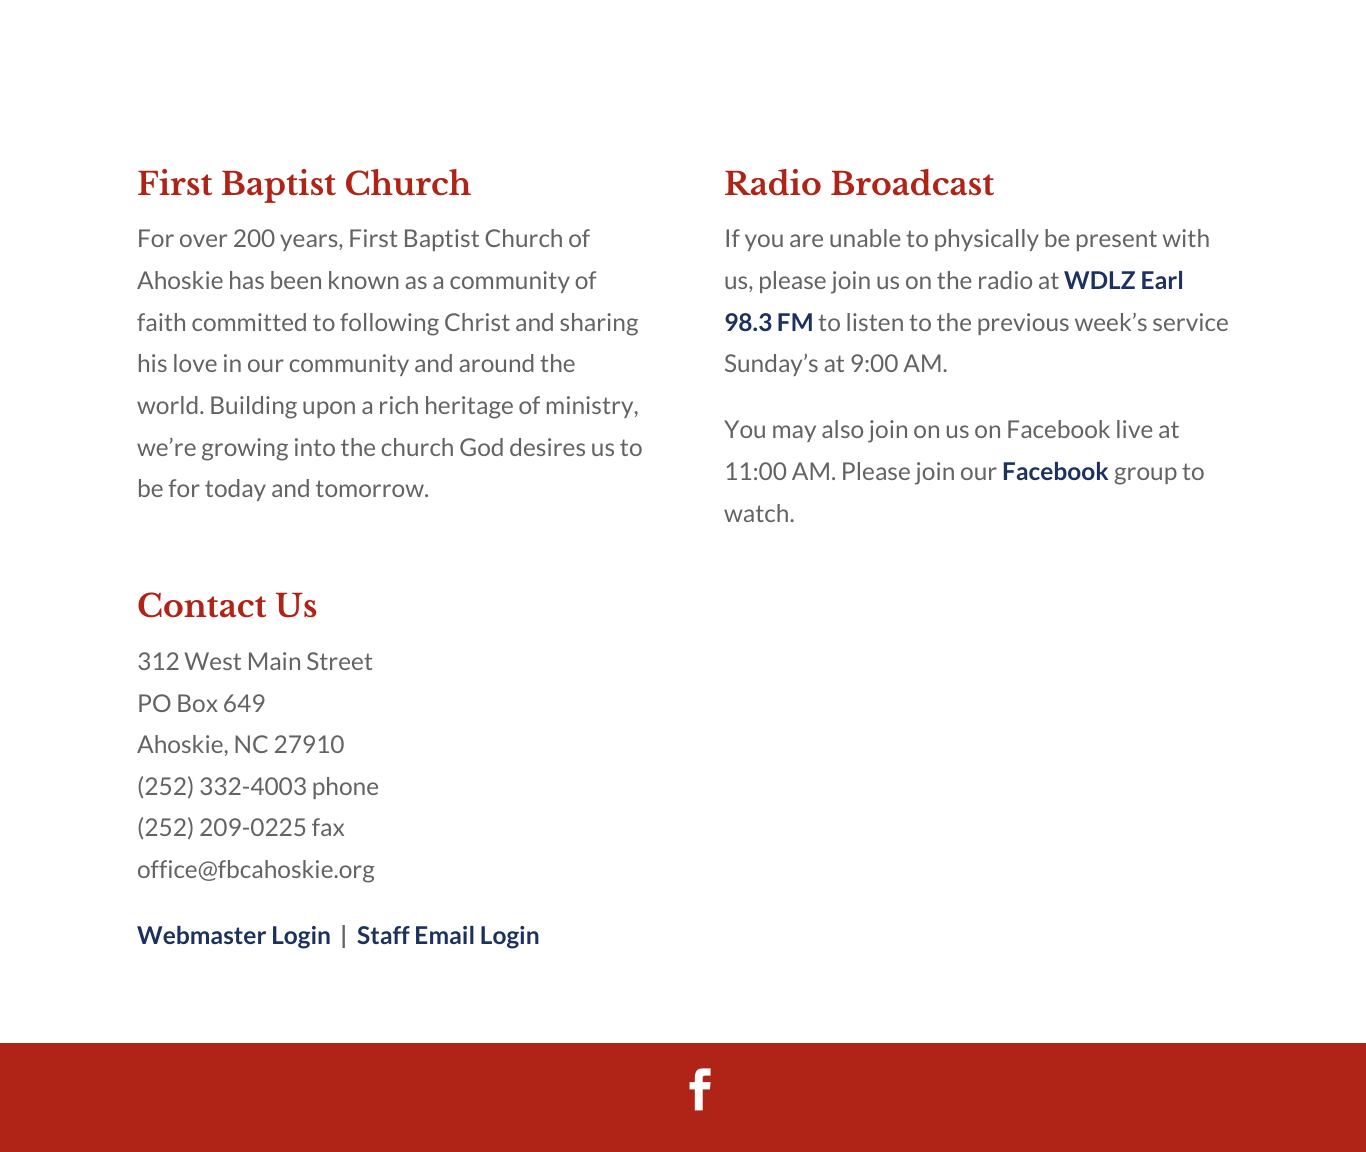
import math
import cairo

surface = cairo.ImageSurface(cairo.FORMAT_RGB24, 1366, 1152)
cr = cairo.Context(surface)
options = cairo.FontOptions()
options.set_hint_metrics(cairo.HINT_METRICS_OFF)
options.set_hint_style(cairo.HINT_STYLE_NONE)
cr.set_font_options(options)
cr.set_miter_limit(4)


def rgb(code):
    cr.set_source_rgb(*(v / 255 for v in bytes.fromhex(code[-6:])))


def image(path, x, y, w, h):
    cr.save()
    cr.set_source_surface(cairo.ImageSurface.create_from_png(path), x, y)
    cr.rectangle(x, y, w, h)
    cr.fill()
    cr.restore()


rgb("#ffffff")
cr.paint()
rgb("#b02418")
cr.rectangle(0, 1043, 1366, 109)
cr.fill()
image("img/1.png", 689, 1068, 22, 43)
cr.select_font_face("Libre Baskerville", cairo.FONT_SLANT_NORMAL, cairo.FONT_WEIGHT_BOLD)
cr.set_font_size(31.5)
cr.move_to(137, 195)
cr.show_text("First Baptist Church")
cr.select_font_face("Lato")
cr.set_font_size(24.5)
rgb("#636363")
for x, y, s in [
    (137, 247, "For over 200 years, First Baptist Church of"),
    (137, 289, "Ahoskie has been known as a community of"),
    (137, 331, "faith committed to following Christ and sharing"),
    (137, 372, "his love in our community and around the"),
    (137, 414, "world. Building upon a rich heritage of ministry,"),
    (137, 456, "we’re growing into the church God desires us to"),
    (137, 497, "be for today and tomorrow."),
]:
    cr.move_to(x, y)
    cr.show_text(s)
cr.select_font_face("Libre Baskerville", cairo.FONT_SLANT_NORMAL, cairo.FONT_WEIGHT_BOLD)
cr.set_font_size(31.5)
rgb("#b02418")
cr.move_to(724, 195)
cr.show_text("Radio Broadcast")
cr.select_font_face("Lato")
cr.set_font_size(24.5)
rgb("#636363")
cr.move_to(724, 247)
cr.show_text("If you are unable to physically be present with")
cr.move_to(724, 289)
cr.show_text("us, please join us on the radio at")
cr.select_font_face("Lato", cairo.FONT_SLANT_NORMAL, cairo.FONT_WEIGHT_BOLD)
rgb("#1c315d")
cr.move_to(1064, 289)
cr.show_text("WDLZ Earl")
cr.move_to(724, 331)
cr.show_text("98.3 FM")
cr.select_font_face("Lato")
rgb("#636363")
for x, y, s in [
    (818, 331, "to listen to the previous week’s service"),
    (724, 372, "Sunday’s at 9:00 AM."),
    (724, 438, "You may also join on us on Facebook live at"),
    (724, 480, "11:00 AM. Please join our"),
]:
    cr.move_to(x, y)
    cr.show_text(s)
cr.select_font_face("Lato", cairo.FONT_SLANT_NORMAL, cairo.FONT_WEIGHT_BOLD)
rgb("#1c315d")
cr.move_to(1002, 480)
cr.show_text("Facebook")
cr.select_font_face("Lato")
rgb("#636363")
cr.move_to(1114, 480)
cr.show_text("group to")
cr.move_to(724, 522)
cr.show_text("watch.")
cr.select_font_face("Libre Baskerville", cairo.FONT_SLANT_NORMAL, cairo.FONT_WEIGHT_BOLD)
cr.set_font_size(31.5)
rgb("#b02418")
cr.move_to(137, 617)
cr.show_text("Contact Us")
cr.select_font_face("Lato")
cr.set_font_size(24.5)
rgb("#636363")
for x, y, s in [
    (137, 670, "312 West Main Street"),
    (137, 712, "PO Box 649"),
    (137, 753, "Ahoskie, NC 27910"),
    (137, 795, "(252) 332-4003 phone"),
    (137, 836, "(252) 209-0225 fax"),
    (137, 878, "office@fbcahoskie.org"),
]:
    cr.move_to(x, y)
    cr.show_text(s)
cr.select_font_face("Lato", cairo.FONT_SLANT_NORMAL, cairo.FONT_WEIGHT_BOLD)
rgb("#1c315d")
cr.move_to(137, 944)
cr.show_text("Webmaster Login")
rgb("#636363")
cr.move_to(340, 944)
cr.show_text("|")
rgb("#1c315d")
cr.move_to(357, 944)
cr.show_text("Staff Email Login")
surface.write_to_png("page.png")
